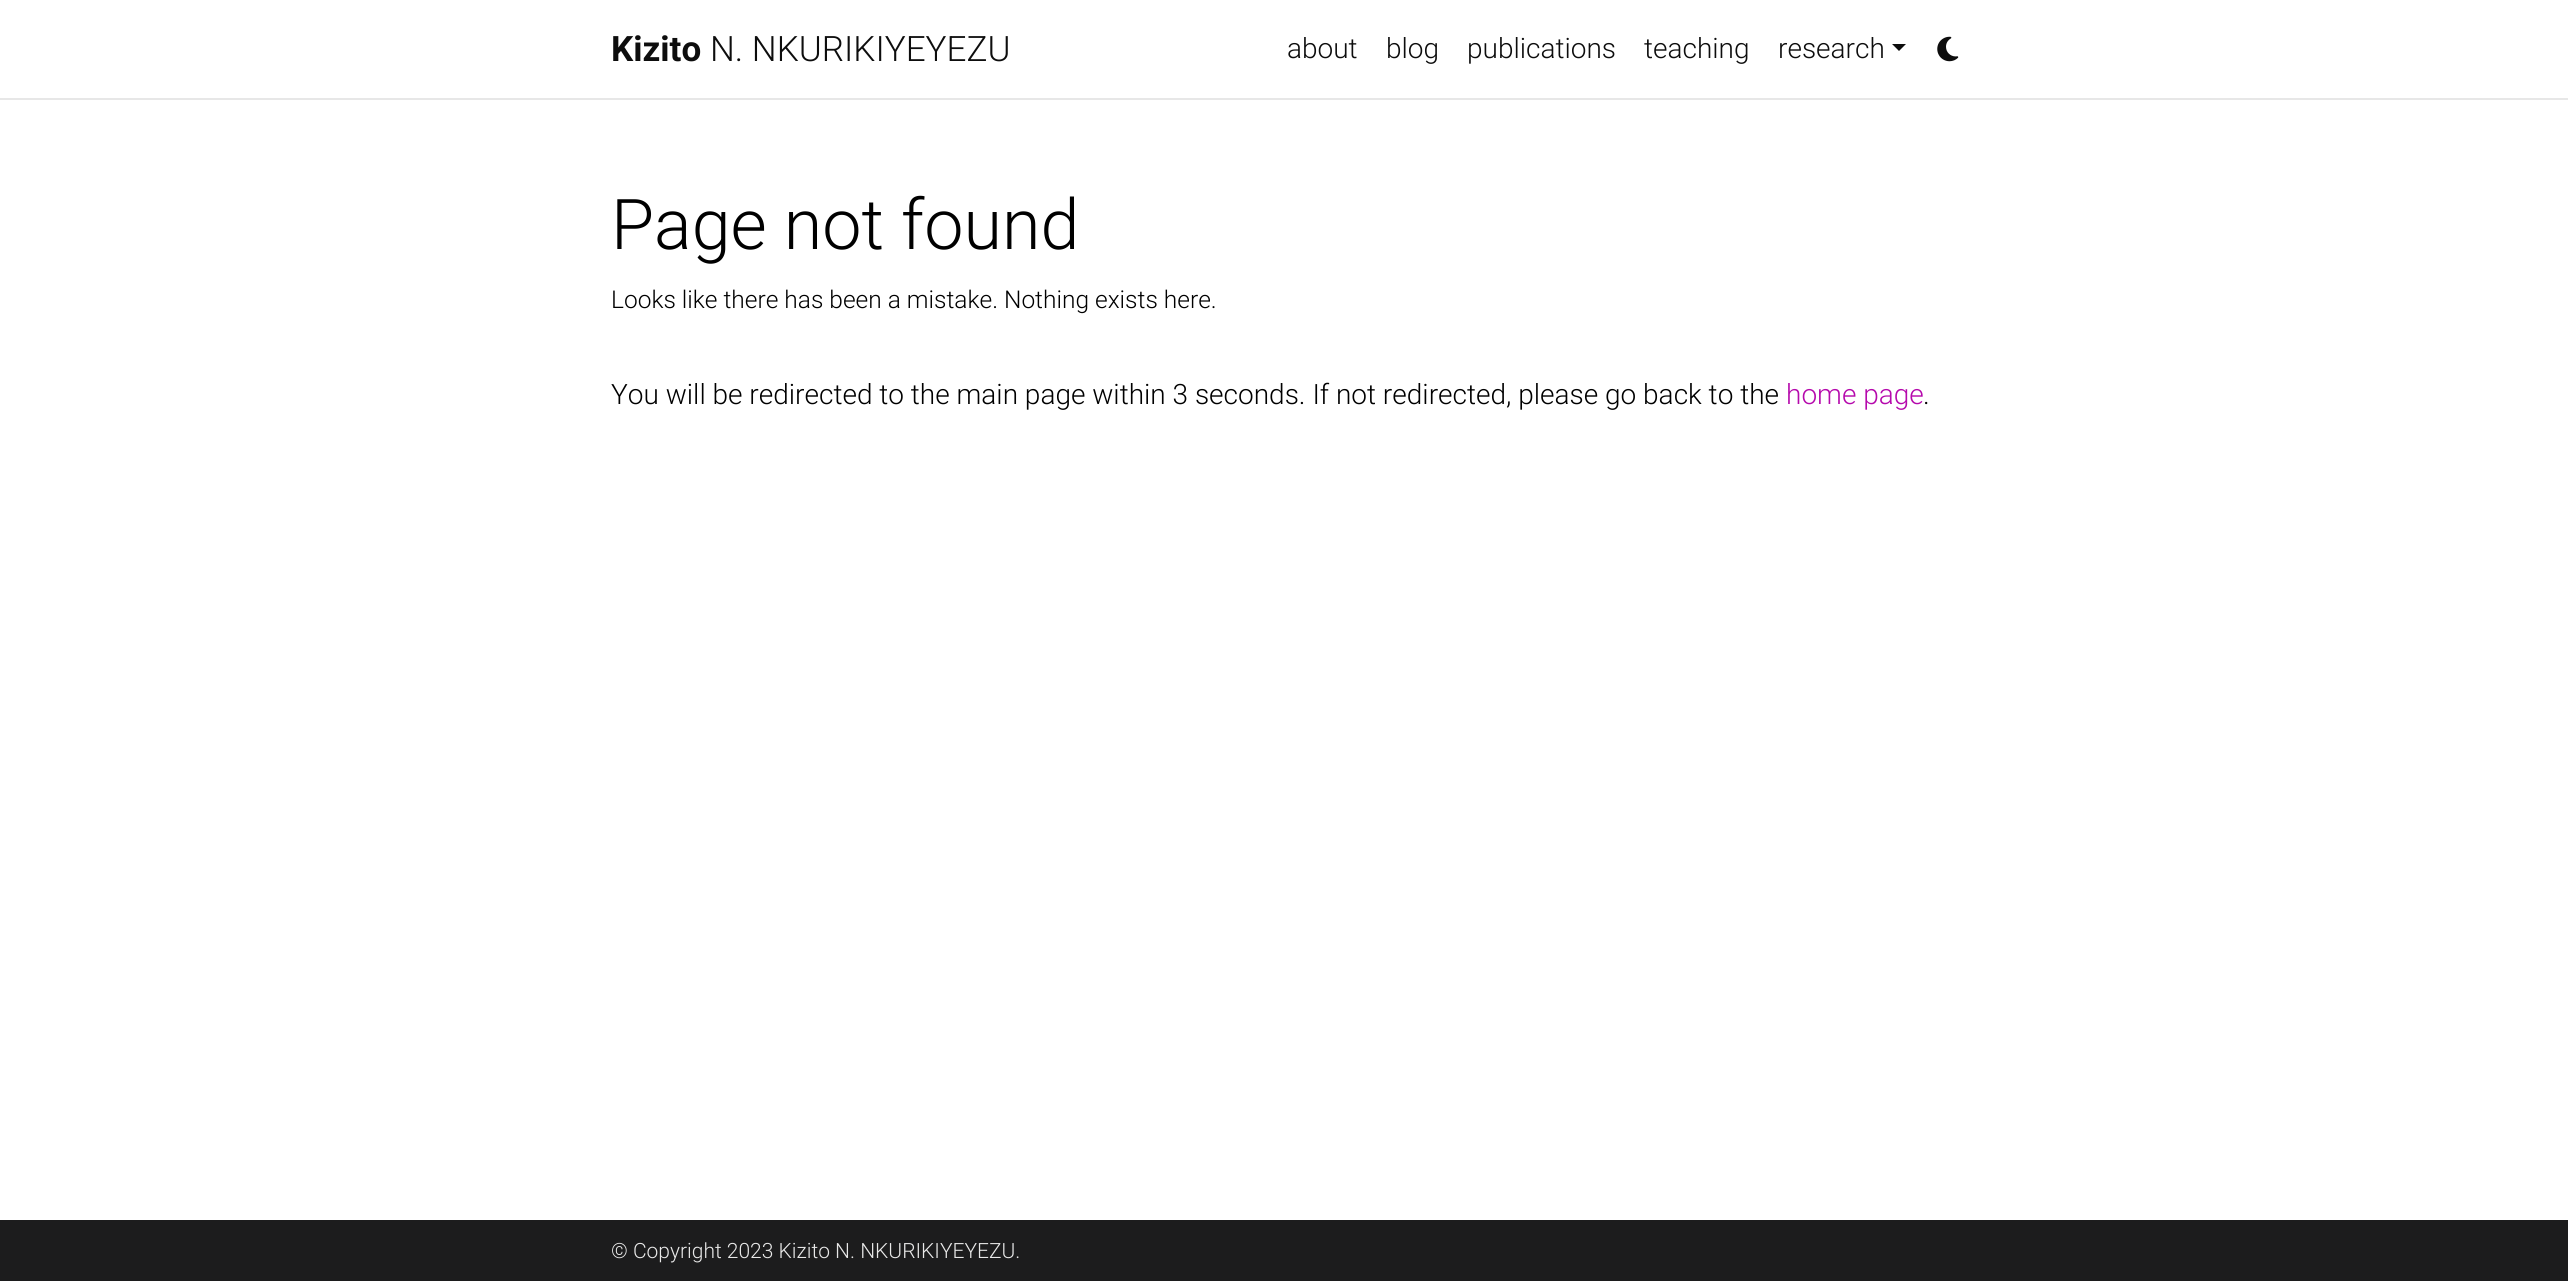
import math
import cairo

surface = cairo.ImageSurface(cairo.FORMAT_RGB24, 2568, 1281)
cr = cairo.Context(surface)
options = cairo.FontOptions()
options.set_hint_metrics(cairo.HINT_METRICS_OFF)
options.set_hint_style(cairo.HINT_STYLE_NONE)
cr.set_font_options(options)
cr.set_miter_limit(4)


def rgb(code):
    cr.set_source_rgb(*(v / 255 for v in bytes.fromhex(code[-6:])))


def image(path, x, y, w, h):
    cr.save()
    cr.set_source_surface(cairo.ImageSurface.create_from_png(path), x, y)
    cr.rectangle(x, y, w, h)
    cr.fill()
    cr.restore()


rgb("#ffffff")
cr.paint()
rgb("#e7e7e7")
cr.rectangle(0, 98, 2568, 2)
cr.fill()
rgb("#0d0d0d")
cr.new_path()
cr.move_to(1892, 44)
cr.line_to(1906, 44)
cr.line_to(1899, 51)
cr.close_path()
cr.fill()
image("img/1.png", 1937, 36, 22, 26)
rgb("#1c1c1d")
cr.rectangle(0, 1220, 2568, 61)
cr.fill()
cr.select_font_face("Roboto", cairo.FONT_SLANT_NORMAL, cairo.FONT_WEIGHT_BOLD)
cr.set_font_size(35)
rgb("#0d0d0d")
cr.move_to(611, 61)
cr.show_text("Kizito")
cr.select_font_face("Roboto Light")
cr.move_to(710, 61)
cr.show_text("N. NKURIKIYEYEZU")
cr.set_font_size(28)
for x, y, s in [
    (1287, 58, "about"),
    (1386, 58, "blog"),
    (1467, 58, "publications"),
    (1644, 58, "teaching"),
    (1778, 58, "research"),
]:
    cr.move_to(x, y)
    cr.show_text(s)
cr.set_font_size(70)
rgb("#000000")
cr.move_to(611, 249)
cr.show_text("Page not found")
cr.set_font_size(24.5)
cr.move_to(611, 308)
cr.show_text("Looks like there has been a mistake. Nothing exists here.")
cr.set_font_size(28)
cr.move_to(611, 404)
cr.show_text("You will be redirected to the main page within 3 seconds. If not redirected, please go back to the")
rgb("#b509ac")
cr.move_to(1786, 404)
cr.show_text("home page")
rgb("#000000")
cr.move_to(1923, 404)
cr.show_text(".")
cr.set_font_size(21)
rgb("#e8e8e8")
cr.move_to(611, 1258)
cr.show_text("© Copyright 2023 Kizito N. NKURIKIYEYEZU.")
surface.write_to_png("page.png")
